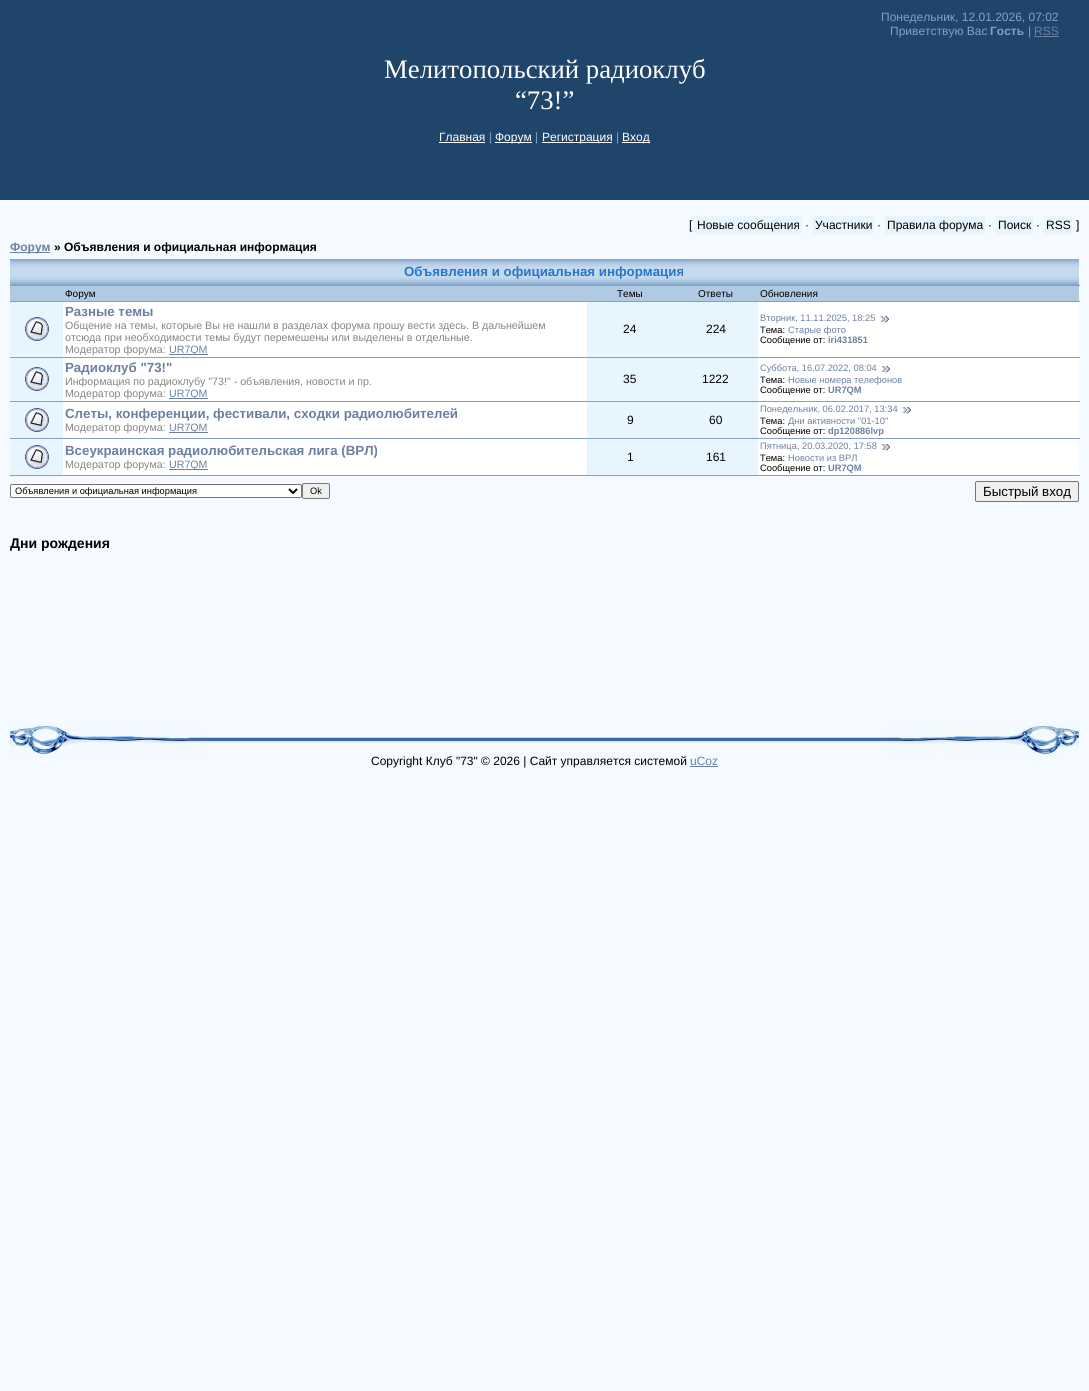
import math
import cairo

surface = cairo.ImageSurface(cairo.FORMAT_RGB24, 1089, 1391)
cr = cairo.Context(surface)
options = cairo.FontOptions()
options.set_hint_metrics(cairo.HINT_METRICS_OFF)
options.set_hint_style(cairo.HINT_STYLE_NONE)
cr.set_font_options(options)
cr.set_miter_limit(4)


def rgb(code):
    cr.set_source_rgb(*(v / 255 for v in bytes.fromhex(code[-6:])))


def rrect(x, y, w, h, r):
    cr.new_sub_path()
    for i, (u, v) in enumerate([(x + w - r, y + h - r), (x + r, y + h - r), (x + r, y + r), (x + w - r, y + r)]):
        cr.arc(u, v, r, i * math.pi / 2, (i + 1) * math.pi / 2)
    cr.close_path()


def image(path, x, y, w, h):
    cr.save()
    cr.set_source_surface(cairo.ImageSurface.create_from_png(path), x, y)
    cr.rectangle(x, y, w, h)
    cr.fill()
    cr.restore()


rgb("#f4faff")
cr.paint()
for x, y, w, h, color in [
    (0, 0, 1089, 200, "#20456a"),
    (1034, 36, 25, 1, "#6b80a3"),
    (439, 142, 46, 1, "#ffffff"),
    (495, 142, 37, 1, "#ffffff"),
    (542, 142, 70, 1, "#ffffff"),
    (622, 142, 28, 1, "#ffffff"),
    (695, 216, 107, 18, "#e7f5fe"),
    (813, 216, 61, 18, "#e7f5fe"),
    (885, 216, 100, 18, "#e7f5fe"),
    (996, 216, 37, 18, "#e7f5fe"),
    (1044, 216, 28, 18, "#e7f5fe"),
    (10, 252, 40, 1, "#6b80a3"),
    (10, 475, 1070, 1, "#849fca"),
]:
    rgb(color)
    cr.rectangle(x, y, w, h)
    cr.fill()
image("img/1.png", 10, 259, 1069, 26)
for x, y, w, h, color in [
    (10, 285, 1070, 1, "#849fca"),
    (10, 286, 1069, 15, "#b0cae4"),
    (10, 301, 1070, 1, "#849fca"),
    (10, 302, 53, 55, "#e7f5ff"),
]:
    rgb(color)
    cr.rectangle(x, y, w, h)
    cr.fill()
image("img/2.png", 25, 317, 24, 24)
for x, y, w, h, color in [
    (63, 302, 524, 55, "#ffffff"),
    (169, 354, 39, 1, "#6b80a3"),
    (587, 302, 171, 55, "#e7f5ff"),
    (758, 302, 321, 55, "#ffffff"),
    (10, 357, 1070, 1, "#849fca"),
]:
    rgb(color)
    cr.rectangle(x, y, w, h)
    cr.fill()
image("img/3.png", 880, 316, 9, 7)
rgb("#e7f5ff")
cr.rectangle(10, 358, 53, 43)
cr.fill()
image("img/2.png", 25, 367, 24, 24)
for x, y, w, h, color in [
    (63, 358, 524, 43, "#ffffff"),
    (169, 398, 39, 1, "#6b80a3"),
    (587, 358, 171, 43, "#e7f5ff"),
    (758, 358, 321, 43, "#ffffff"),
    (10, 401, 1070, 1, "#849fca"),
]:
    rgb(color)
    cr.rectangle(x, y, w, h)
    cr.fill()
image("img/3.png", 881, 366, 9, 7)
rgb("#e7f5ff")
cr.rectangle(10, 402, 53, 36)
cr.fill()
image("img/2.png", 25, 408, 24, 24)
for x, y, w, h, color in [
    (63, 402, 524, 36, "#ffffff"),
    (169, 432, 39, 1, "#6b80a3"),
    (587, 402, 171, 36, "#e7f5ff"),
    (758, 402, 321, 36, "#ffffff"),
    (10, 438, 1070, 1, "#849fca"),
]:
    rgb(color)
    cr.rectangle(x, y, w, h)
    cr.fill()
image("img/3.png", 902, 407, 9, 7)
rgb("#e7f5ff")
cr.rectangle(10, 439, 53, 36)
cr.fill()
image("img/2.png", 25, 445, 24, 24)
for x, y, w, h, color in [
    (63, 439, 524, 36, "#ffffff"),
    (169, 469, 39, 1, "#6b80a3"),
    (587, 439, 171, 36, "#e7f5ff"),
    (758, 439, 321, 36, "#ffffff"),
]:
    rgb(color)
    cr.rectangle(x, y, w, h)
    cr.fill()
image("img/3.png", 881, 444, 9, 7)
rrect(10.5, 484.5, 291, 13, 1.5)
cr.fill_preserve()
rgb("#767676")
cr.set_line_width(1)
cr.stroke()
cr.new_path()
cr.move_to(289, 489)
cr.line_to(293, 493)
cr.line_to(297, 489)
rgb("#000000")
cr.set_line_width(2)
cr.stroke()
rgb("#efefef")
rrect(302.5, 483.5, 27, 15, 1.5)
cr.fill_preserve()
rgb("#767676")
cr.set_line_width(1)
cr.stroke()
rgb("#efefef")
rrect(975.5, 481.5, 103, 20, 1.5)
cr.fill_preserve()
rgb("#767676")
cr.stroke()
image("img/4.png", 202, 737, 682, 6)
image("img/5.png", 10, 725, 192, 32)
image("img/6.png", 884, 725, 195, 32)
rgb("#6b80a3")
cr.rectangle(690, 766, 28, 1)
cr.fill()
cr.select_font_face("Liberation Sans")
cr.set_font_size(12)
rgb("#849fca")
cr.move_to(881, 21)
cr.show_text("Понедельник, 12.01.2026, 07:02")
cr.move_to(890, 35)
cr.show_text("Приветствую Вас")
cr.select_font_face("Liberation Sans", cairo.FONT_SLANT_NORMAL, cairo.FONT_WEIGHT_BOLD)
cr.move_to(990, 35)
cr.show_text("Гость")
cr.select_font_face("Liberation Sans")
cr.move_to(1028, 35)
cr.show_text("|")
rgb("#6b80a3")
cr.move_to(1034, 35)
cr.show_text("RSS")
cr.select_font_face("Liberation Serif")
cr.set_font_size(26.75)
rgb("#ffffff")
cr.move_to(384, 78)
cr.show_text("Мелитопольский радиоклуб")
cr.move_to(515, 109)
cr.show_text("“73!”")
cr.select_font_face("Liberation Sans")
cr.set_font_size(12)
cr.move_to(439, 141)
cr.show_text("Главная")
rgb("#849fca")
cr.move_to(489, 141)
cr.show_text("|")
rgb("#ffffff")
cr.move_to(495, 141)
cr.show_text("Форум")
rgb("#849fca")
cr.move_to(535, 141)
cr.show_text("|")
rgb("#ffffff")
cr.move_to(542, 141)
cr.show_text("Регистрация")
rgb("#849fca")
cr.move_to(616, 141)
cr.show_text("|")
rgb("#ffffff")
cr.move_to(622, 141)
cr.show_text("Вход")
rgb("#000000")
for x, y, s in [
    (689, 229, "["),
    (697, 229, "Новые сообщения"),
    (805, 229, "·"),
    (815, 229, "Участники"),
    (877, 229, "·"),
    (887, 229, "Правила форума"),
    (988, 229, "·"),
    (998, 229, "Поиск"),
    (1036, 229, "·"),
    (1046, 229, "RSS"),
    (1076, 229, "]"),
]:
    cr.move_to(x, y)
    cr.show_text(s)
cr.select_font_face("Liberation Sans", cairo.FONT_SLANT_NORMAL, cairo.FONT_WEIGHT_BOLD)
rgb("#6b80a3")
cr.move_to(10, 251)
cr.show_text("Форум")
rgb("#000000")
cr.move_to(54, 251)
cr.show_text("» Объявления и официальная информация")
cr.set_font_size(13.3)
rgb("#2a75c4")
cr.move_to(404, 276)
cr.show_text("Объявления и официальная информация")
cr.select_font_face("Liberation Sans")
cr.set_font_size(10)
rgb("#000000")
for x, y, s in [
    (65, 297, "Форум"),
    (617, 297, "Темы"),
    (698, 297, "Ответы"),
    (760, 297, "Обновления"),
]:
    cr.move_to(x, y)
    cr.show_text(s)
cr.select_font_face("Liberation Sans", cairo.FONT_SLANT_NORMAL, cairo.FONT_WEIGHT_BOLD)
cr.set_font_size(13.3)
rgb("#6b80a3")
cr.move_to(65, 316)
cr.show_text("Разные темы")
cr.select_font_face("Liberation Sans")
cr.set_font_size(10.65)
rgb("#858585")
for x, y, s in [
    (65, 329, "Общение на темы, которые Вы не нашли в разделах форума прошу вести здесь. В дальнейшем"),
    (65, 341, "отсюда при необходимости темы будут перемешены или выделены в отдельные."),
    (65, 353, "Модератор форума:"),
]:
    cr.move_to(x, y)
    cr.show_text(s)
rgb("#6b80a3")
cr.move_to(169, 353)
cr.show_text("UR7QM")
cr.set_font_size(12)
rgb("#000000")
cr.move_to(623, 333)
cr.show_text("24")
cr.move_to(706, 333)
cr.show_text("224")
cr.set_font_size(9.3)
rgb("#6b80a3")
cr.move_to(760, 321)
cr.show_text("Вторник, 11.11.2025, 18:25")
rgb("#000000")
cr.move_to(760, 333)
cr.show_text("Тема:")
rgb("#6b80a3")
cr.move_to(788, 333)
cr.show_text("Старые фото")
rgb("#000000")
cr.move_to(760, 343)
cr.show_text("Сообщение от:")
cr.select_font_face("Liberation Sans", cairo.FONT_SLANT_NORMAL, cairo.FONT_WEIGHT_BOLD)
rgb("#6b80a3")
cr.move_to(828, 343)
cr.show_text("iri431851")
cr.set_font_size(13.3)
cr.move_to(65, 372)
cr.show_text("Радиоклуб \"73!\"")
cr.select_font_face("Liberation Sans")
cr.set_font_size(10.65)
rgb("#858585")
cr.move_to(65, 385)
cr.show_text("Информация по радиоклубу \"73!\" - объявления, новости и пр.")
cr.move_to(65, 397)
cr.show_text("Модератор форума:")
rgb("#6b80a3")
cr.move_to(169, 397)
cr.show_text("UR7QM")
cr.set_font_size(12)
rgb("#000000")
cr.move_to(623, 383)
cr.show_text("35")
cr.move_to(702, 383)
cr.show_text("1222")
cr.set_font_size(9.3)
rgb("#6b80a3")
cr.move_to(760, 371)
cr.show_text("Суббота, 16.07.2022, 08:04")
rgb("#000000")
cr.move_to(760, 383)
cr.show_text("Тема:")
rgb("#6b80a3")
cr.move_to(788, 383)
cr.show_text("Новые номера телефонов")
rgb("#000000")
cr.move_to(760, 393)
cr.show_text("Сообщение от:")
cr.select_font_face("Liberation Sans", cairo.FONT_SLANT_NORMAL, cairo.FONT_WEIGHT_BOLD)
rgb("#6b80a3")
cr.move_to(828, 393)
cr.show_text("UR7QM")
cr.set_font_size(13.3)
cr.move_to(65, 418)
cr.show_text("Слеты, конференции, фестивали, сходки радиолюбителей")
cr.select_font_face("Liberation Sans")
cr.set_font_size(10.65)
rgb("#858585")
cr.move_to(65, 431)
cr.show_text("Модератор форума:")
rgb("#6b80a3")
cr.move_to(169, 431)
cr.show_text("UR7QM")
cr.set_font_size(12)
rgb("#000000")
cr.move_to(627, 424)
cr.show_text("9")
cr.move_to(709, 424)
cr.show_text("60")
cr.set_font_size(9.3)
rgb("#6b80a3")
cr.move_to(760, 412)
cr.show_text("Понедельник, 06.02.2017, 13:34")
rgb("#000000")
cr.move_to(760, 424)
cr.show_text("Тема:")
rgb("#6b80a3")
cr.move_to(788, 424)
cr.show_text("Дни активности \"01-10\"")
rgb("#000000")
cr.move_to(760, 434)
cr.show_text("Сообщение от:")
cr.select_font_face("Liberation Sans", cairo.FONT_SLANT_NORMAL, cairo.FONT_WEIGHT_BOLD)
rgb("#6b80a3")
cr.move_to(828, 434)
cr.show_text("dp120886lvp")
cr.set_font_size(13.3)
cr.move_to(65, 455)
cr.show_text("Всеукраинская радиолюбительская лига (ВРЛ)")
cr.select_font_face("Liberation Sans")
cr.set_font_size(10.65)
rgb("#858585")
cr.move_to(65, 468)
cr.show_text("Модератор форума:")
rgb("#6b80a3")
cr.move_to(169, 468)
cr.show_text("UR7QM")
cr.set_font_size(12)
rgb("#000000")
cr.move_to(627, 461)
cr.show_text("1")
cr.move_to(706, 461)
cr.show_text("161")
cr.set_font_size(9.3)
rgb("#6b80a3")
cr.move_to(760, 449)
cr.show_text("Пятница, 20.03.2020, 17:58")
rgb("#000000")
cr.move_to(760, 461)
cr.show_text("Тема:")
rgb("#6b80a3")
cr.move_to(788, 461)
cr.show_text("Новости из ВРЛ")
rgb("#000000")
cr.move_to(760, 471)
cr.show_text("Сообщение от:")
cr.select_font_face("Liberation Sans", cairo.FONT_SLANT_NORMAL, cairo.FONT_WEIGHT_BOLD)
rgb("#6b80a3")
cr.move_to(828, 471)
cr.show_text("UR7QM")
cr.select_font_face("Liberation Sans")
rgb("#000000")
cr.move_to(15, 494)
cr.show_text("Объявления и официальная информация")
cr.move_to(310, 494)
cr.show_text("Ok")
cr.set_font_size(13.3)
cr.move_to(983, 496)
cr.show_text("Быстрый вход")
cr.select_font_face("Liberation Sans", cairo.FONT_SLANT_NORMAL, cairo.FONT_WEIGHT_BOLD)
cr.set_font_size(14)
cr.move_to(10, 548)
cr.show_text("Дни рождения")
cr.select_font_face("Liberation Sans")
cr.set_font_size(12)
cr.move_to(371, 765)
cr.show_text("Copyright Клуб \"73\" © 2026 | Сайт управляется системой")
rgb("#6b80a3")
cr.move_to(690, 765)
cr.show_text("uCoz")
surface.write_to_png("page.png")
